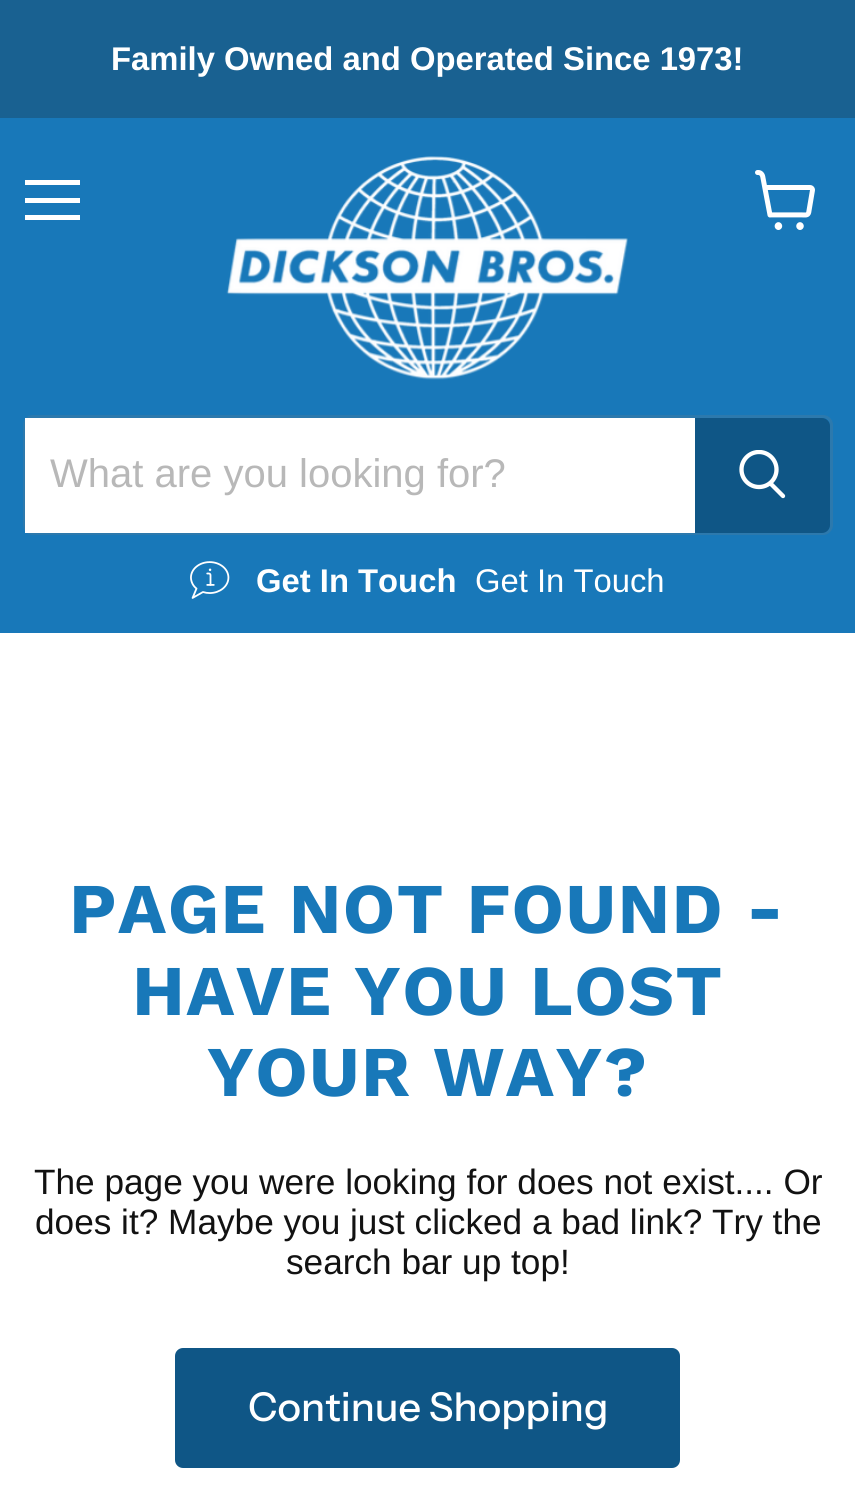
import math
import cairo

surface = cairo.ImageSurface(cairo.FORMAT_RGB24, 855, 1506)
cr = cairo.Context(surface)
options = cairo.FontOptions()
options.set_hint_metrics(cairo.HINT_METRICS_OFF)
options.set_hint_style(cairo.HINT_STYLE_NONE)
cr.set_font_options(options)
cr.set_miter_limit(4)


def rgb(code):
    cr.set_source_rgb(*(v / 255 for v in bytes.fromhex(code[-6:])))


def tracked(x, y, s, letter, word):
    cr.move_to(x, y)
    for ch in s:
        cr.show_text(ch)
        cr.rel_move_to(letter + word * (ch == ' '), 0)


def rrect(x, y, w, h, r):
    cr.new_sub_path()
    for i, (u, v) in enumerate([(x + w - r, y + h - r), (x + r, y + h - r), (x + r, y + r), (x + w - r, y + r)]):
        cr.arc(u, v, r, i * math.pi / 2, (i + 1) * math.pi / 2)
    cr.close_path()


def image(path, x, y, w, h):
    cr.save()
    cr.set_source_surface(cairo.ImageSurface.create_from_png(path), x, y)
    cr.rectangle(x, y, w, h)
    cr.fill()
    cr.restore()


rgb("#ffffff")
cr.paint()
for x, y, w, h, color in [
    (0, 0, 855, 118, "#196191"),
    (0, 118, 855, 515, "#1878b9"),
    (25, 180, 55, 5, "#ffffff"),
    (25, 198, 55, 5, "#ffffff"),
    (25, 215, 55, 5, "#ffffff"),
]:
    rgb(color)
    cr.rectangle(x, y, w, h)
    cr.fill()
image("img/1.png", 755, 170, 60, 60)
image("img/2.png", 226, 156, 402, 224)
rrect(24.5, 416.5, 807, 117, 8.5)
cr.set_source_rgba(0.502, 0.502, 0.502, 0.2)
cr.set_line_width(3)
cr.stroke()
rgb("#ffffff")
cr.rectangle(25, 418, 670, 115)
cr.fill()
rgb("#0f5686")
cr.new_path()
cr.move_to(696.5, 419.5)
cr.line_to(822, 419.5)
cr.curve_to(825.5, 419.5, 828.5, 422.5, 828.5, 426)
cr.line_to(828.5, 525)
cr.curve_to(828.5, 528.5, 825.5, 531.5, 822, 531.5)
cr.line_to(696.5, 531.5)
cr.close_path()
cr.fill_preserve()
cr.stroke()
cr.new_path()
cr.move_to(783, 496)
cr.line_to(771, 484)
rgb("#ffffff")
cr.set_line_width(4.3)
cr.set_line_cap(cairo.LINE_CAP_ROUND)
cr.stroke()
cr.save()
cr.rectangle(738, 450, 50, 53)
cr.clip()
cr.arc(759, 469.5, 17.5, 0, 2 * math.pi)
cr.set_line_cap(cairo.LINE_CAP_BUTT)
cr.stroke()
cr.restore()
image("img/3.png", 190, 561, 40, 38)
rgb("#0f5686")
rrect(176.5, 1349.5, 502, 117, 6.5)
cr.fill_preserve()
cr.set_line_width(3)
cr.set_line_cap(cairo.LINE_CAP_BUTT)
cr.stroke()
cr.select_font_face("Liberation Sans", cairo.FONT_SLANT_NORMAL, cairo.FONT_WEIGHT_BOLD)
cr.set_font_size(32.8)
rgb("#ffffff")
cr.move_to(111, 70)
cr.show_text("Family Owned and Operated Since 1973!")
cr.select_font_face("Liberation Sans")
cr.set_font_size(40)
rgb("#b8b8b8")
cr.move_to(50, 487)
cr.show_text("What are you looking for?")
cr.select_font_face("Liberation Sans", cairo.FONT_SLANT_NORMAL, cairo.FONT_WEIGHT_BOLD)
cr.set_font_size(32.8)
rgb("#ffffff")
cr.move_to(256, 592)
cr.show_text("Get In Touch")
cr.select_font_face("Liberation Sans")
cr.move_to(475, 592)
cr.show_text("Get In Touch")
cr.select_font_face("Work Sans", cairo.FONT_SLANT_NORMAL, cairo.FONT_WEIGHT_BOLD)
cr.set_font_size(71.25)
rgb("#1878b9")
for x, y, s in [
    (69, 933, "PAGE NOT FOUND -"),
    (132, 1015, "HAVE YOU LOST"),
    (207, 1096, "YOUR WAY?"),
]:
    tracked(x, y, s, 1.4, 0)
cr.select_font_face("Liberation Sans")
cr.set_font_size(35.2)
rgb("#121212")
for x, y, s in [
    (34, 1194, "The page you were looking for does not exist.... Or"),
    (35, 1234, "does it? Maybe you just clicked a bad link? Try the"),
    (286, 1274, "search bar up top!"),
]:
    cr.move_to(x, y)
    cr.show_text(s)
cr.select_font_face("Instrument Sans Medium")
cr.set_font_size(39.75)
rgb("#ffffff")
cr.move_to(248, 1421)
cr.show_text("Continue Shopping")
surface.write_to_png("page.png")
